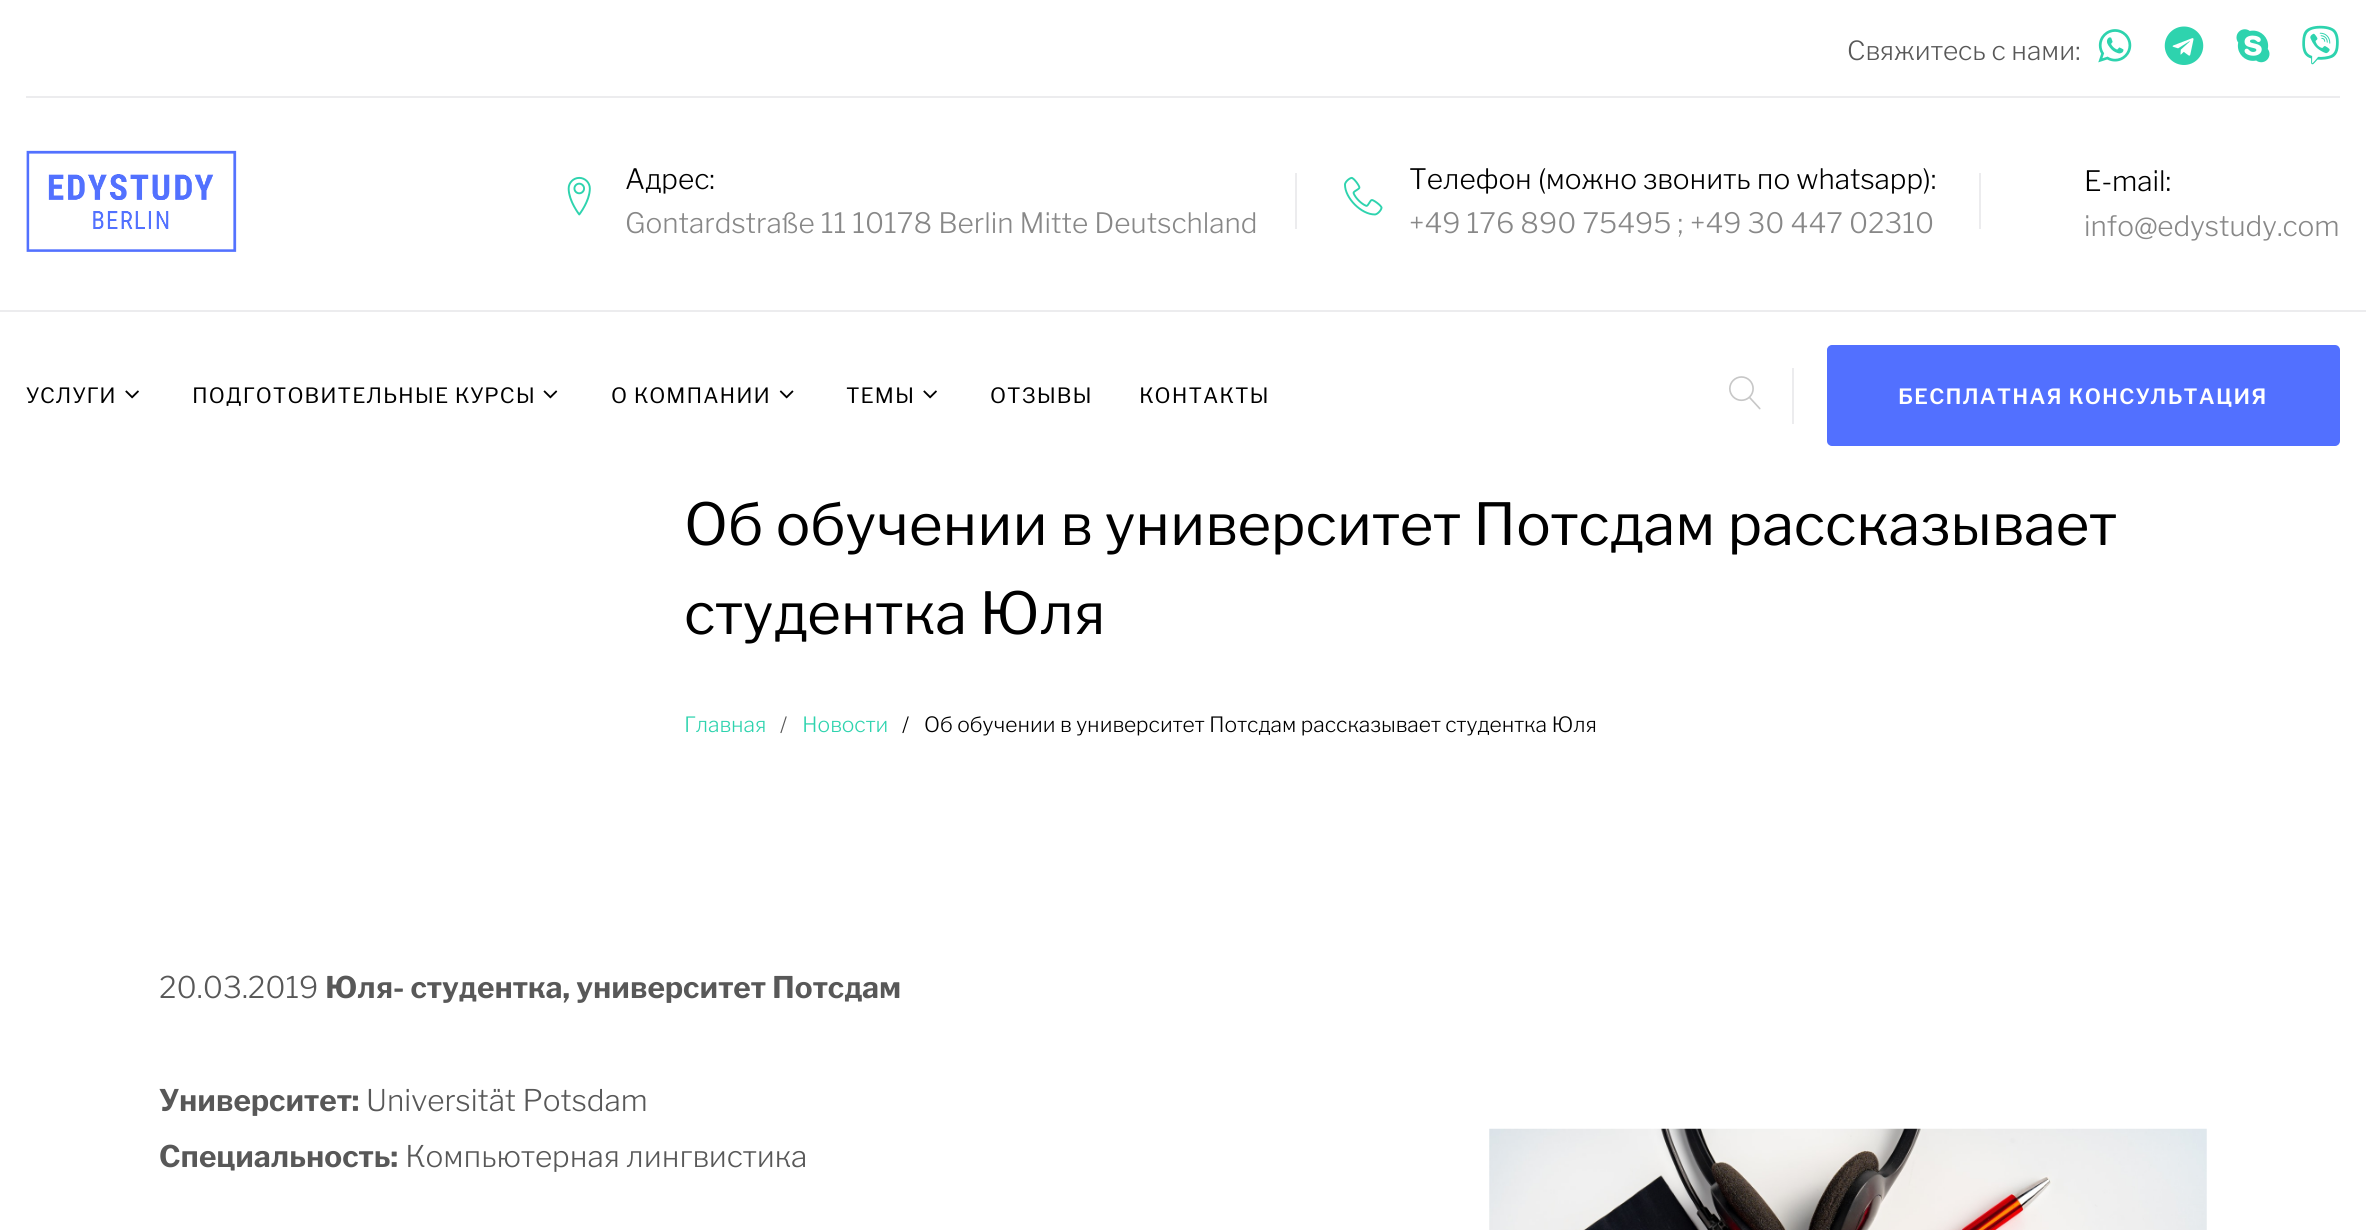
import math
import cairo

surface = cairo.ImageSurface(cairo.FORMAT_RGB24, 2366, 1230)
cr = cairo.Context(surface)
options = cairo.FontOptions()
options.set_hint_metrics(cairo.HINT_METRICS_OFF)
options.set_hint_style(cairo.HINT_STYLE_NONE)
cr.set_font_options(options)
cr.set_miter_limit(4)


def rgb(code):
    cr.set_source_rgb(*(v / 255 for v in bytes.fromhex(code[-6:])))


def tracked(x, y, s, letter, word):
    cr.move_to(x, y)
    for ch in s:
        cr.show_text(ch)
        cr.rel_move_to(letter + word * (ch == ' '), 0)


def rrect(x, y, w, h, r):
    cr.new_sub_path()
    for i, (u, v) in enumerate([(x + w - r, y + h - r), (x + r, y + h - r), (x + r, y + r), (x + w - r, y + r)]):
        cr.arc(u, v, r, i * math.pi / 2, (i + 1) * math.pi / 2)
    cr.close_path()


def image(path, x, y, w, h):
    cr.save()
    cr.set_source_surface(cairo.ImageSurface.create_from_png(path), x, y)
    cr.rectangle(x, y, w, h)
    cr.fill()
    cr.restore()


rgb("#ffffff")
cr.paint()
image("img/1.png", 2098, 29, 34, 34)
image("img/2.png", 2164, 26, 40, 39)
image("img/3.png", 2236, 29, 34, 34)
image("img/4.png", 2302, 25, 37, 40)
rgb("#ececee")
cr.rectangle(26, 96, 2314, 2)
cr.fill()
image("img/5.png", 26, 150, 211, 102)
image("img/6.png", 567, 176, 24, 40)
cr.rectangle(1295, 173, 2, 56)
cr.fill()
image("img/7.png", 1344, 176, 39, 40)
cr.rectangle(1979, 173, 2, 56)
cr.fill()
cr.rectangle(0, 310, 2366, 2)
cr.fill()
image("img/8.png", 125, 390, 14, 9)
image("img/9.png", 543, 390, 15, 9)
image("img/10.png", 779, 390, 15, 9)
image("img/8.png", 923, 390, 14, 9)
image("img/11.png", 1729, 376, 32, 34)
cr.rectangle(1792, 368, 2, 56)
cr.fill()
rgb("#5270ff")
rrect(1828, 346, 511, 99, 4)
cr.fill_preserve()
cr.stroke()
image("img/12.png", 1489, 1128, 718, 102)
cr.select_font_face("Libre Franklin Light")
cr.set_font_size(26.25)
rgb("#585858")
cr.move_to(1847, 60)
cr.show_text("Свяжитесь с нами:")
cr.set_font_size(28)
rgb("#000000")
cr.move_to(625, 189)
cr.show_text("Адрес:")
rgb("#888888")
cr.move_to(625, 233)
cr.show_text("Gontardstraße 11 10178 Berlin Mitte Deutschland")
rgb("#000000")
cr.move_to(1409, 189)
cr.show_text("Телефон (можно звонить по whatsapp):")
rgb("#888888")
cr.move_to(1409, 233)
cr.show_text("+49 176 890 75495 ;")
cr.move_to(1690, 233)
cr.show_text("+49 30 447 02310")
rgb("#000000")
cr.move_to(2084, 191)
cr.show_text("E-mail:")
rgb("#888888")
cr.move_to(2084, 236)
cr.show_text("info@edystudy.com")
cr.select_font_face("Libre Franklin")
cr.set_font_size(21)
rgb("#000000")
for x, y, s in [
    (26, 403, "УСЛУГИ"),
    (192, 403, "ПОДГОТОВИТЕЛЬНЫЕ КУРСЫ"),
    (611, 403, "О КОМПАНИИ"),
    (846, 403, "ТЕМЫ"),
    (990, 403, "ОТЗЫВЫ"),
    (1139, 403, "КОНТАКТЫ"),
]:
    tracked(x, y, s, 1.05, 0)
cr.select_font_face("Libre Franklin SemiBold")
rgb("#ffffff")
tracked(1898, 404, "БЕСПЛАТНАЯ КОНСУЛЬТАЦИЯ", 1.25, 0)
cr.select_font_face("Libre Franklin")
cr.set_font_size(57.75)
rgb("#000000")
cr.move_to(684, 545)
cr.show_text("Об обучении в университет Потсдам рассказывает")
cr.move_to(684, 634)
cr.show_text("студентка Юля")
cr.select_font_face("Libre Franklin Light")
cr.set_font_size(21)
rgb("#2ed3ae")
cr.move_to(684, 732)
cr.show_text("Главная")
rgb("#585858")
cr.move_to(780, 732)
cr.show_text("/")
rgb("#2ed3ae")
cr.move_to(802, 732)
cr.show_text("Новости")
rgb("#000000")
cr.move_to(902, 732)
cr.show_text("/")
cr.move_to(924, 732)
cr.show_text("Об обучении в университет Потсдам рассказывает студентка Юля")
cr.set_font_size(29.75)
rgb("#585858")
cr.move_to(159, 998)
cr.show_text("20.03.2019")
cr.select_font_face("Libre Franklin", cairo.FONT_SLANT_NORMAL, cairo.FONT_WEIGHT_BOLD)
cr.move_to(325, 998)
cr.show_text("Юля- студентка, университет Потсдам")
cr.move_to(159, 1111)
cr.show_text("Университет:")
cr.select_font_face("Libre Franklin Light")
cr.move_to(366, 1111)
cr.show_text("Universität Potsdam")
cr.select_font_face("Libre Franklin", cairo.FONT_SLANT_NORMAL, cairo.FONT_WEIGHT_BOLD)
cr.move_to(159, 1167)
cr.show_text("Специальность:")
cr.select_font_face("Libre Franklin Light")
cr.move_to(405, 1167)
cr.show_text("Компьютерная лингвистика")
surface.write_to_png("page.png")
